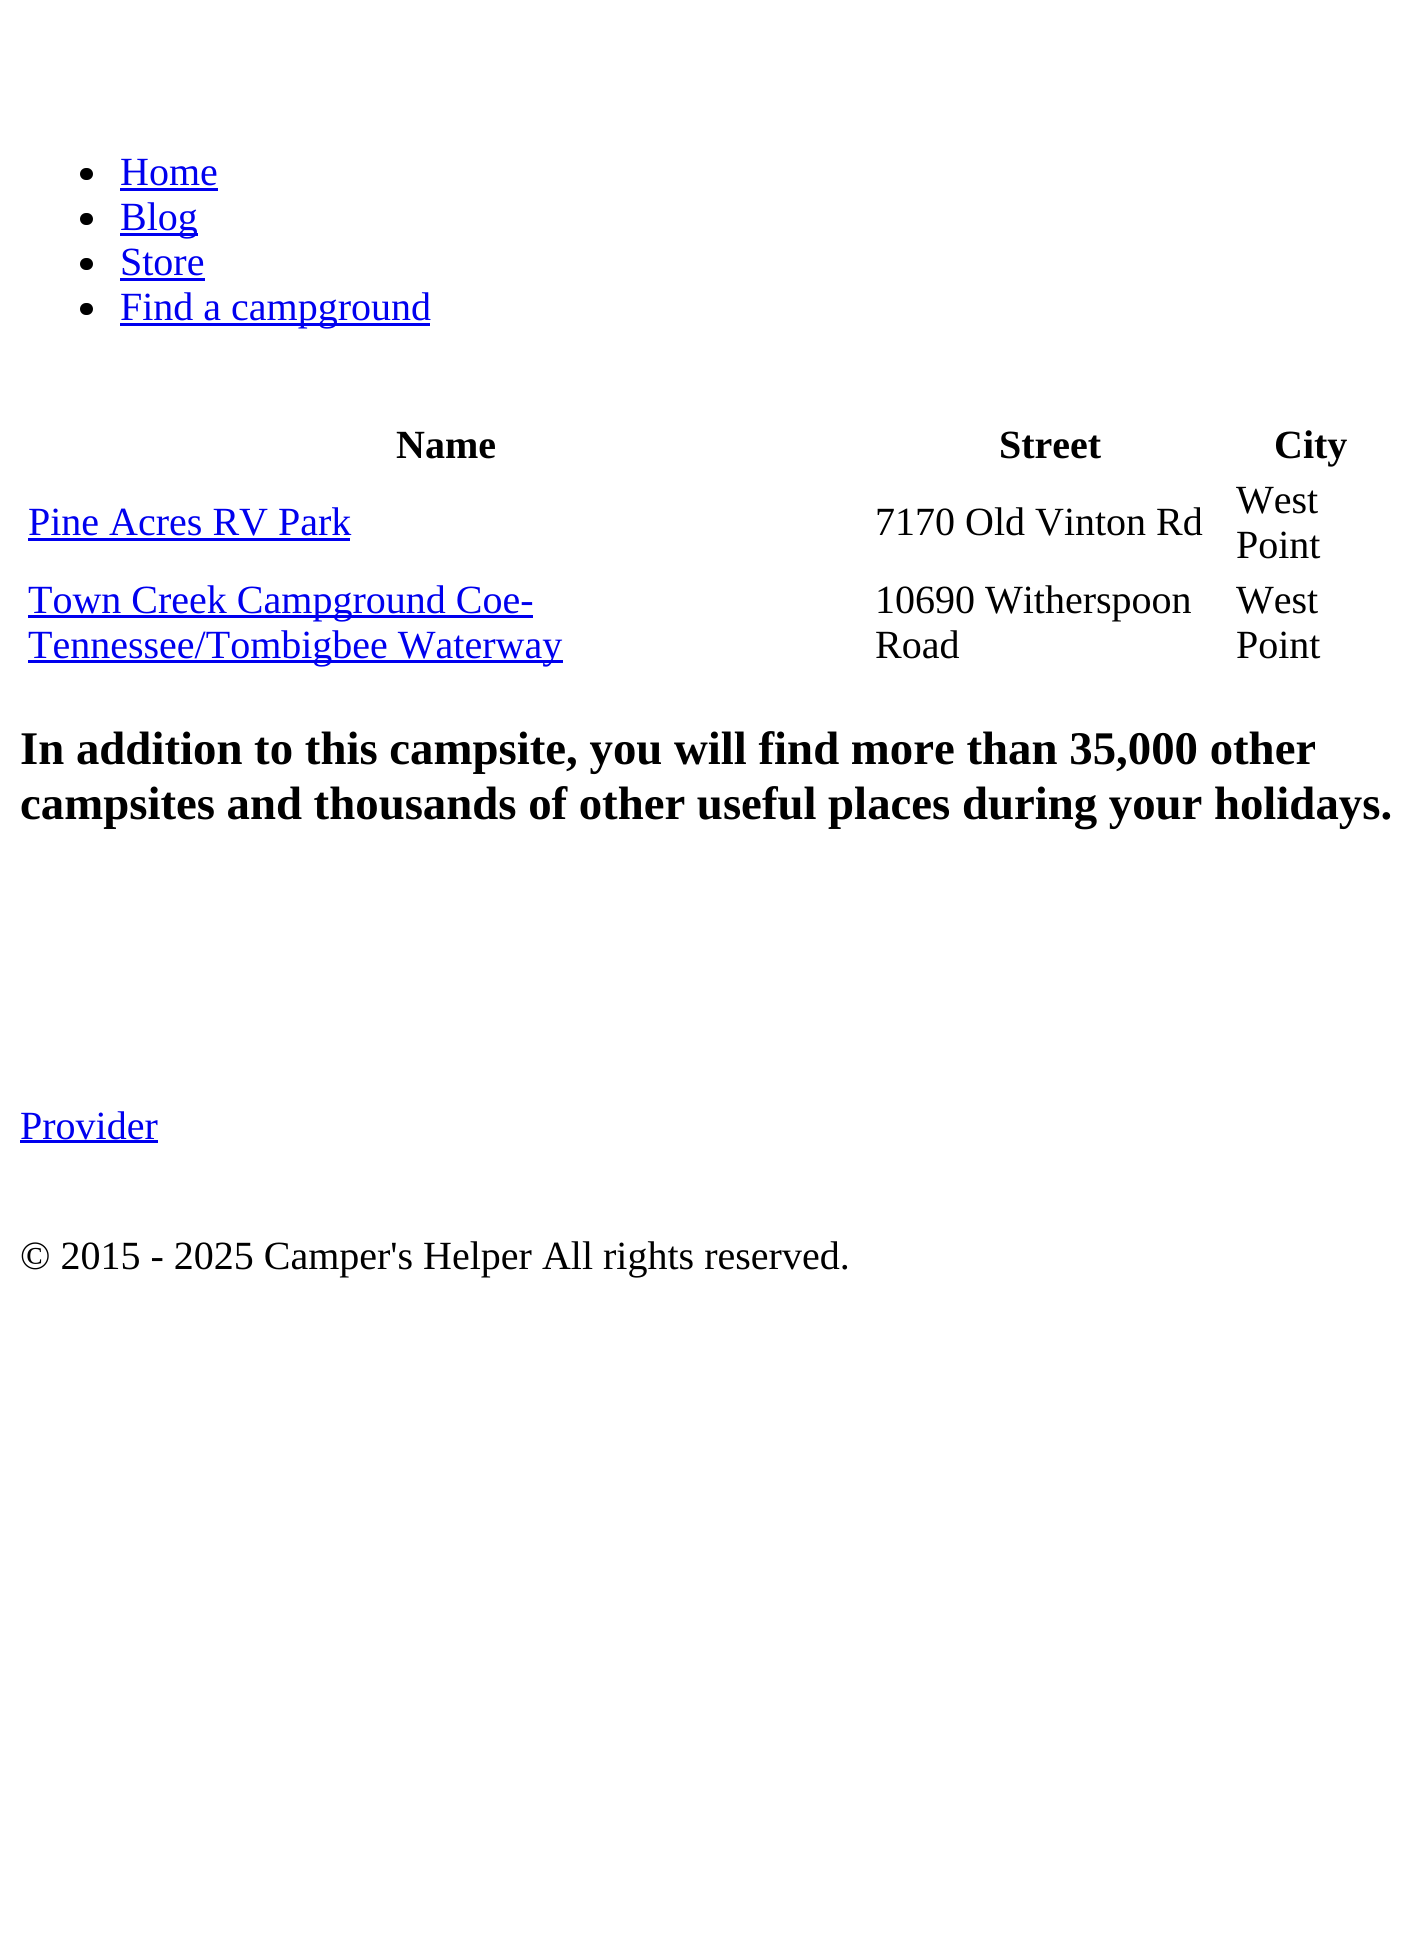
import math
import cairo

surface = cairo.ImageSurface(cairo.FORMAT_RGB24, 1411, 1947)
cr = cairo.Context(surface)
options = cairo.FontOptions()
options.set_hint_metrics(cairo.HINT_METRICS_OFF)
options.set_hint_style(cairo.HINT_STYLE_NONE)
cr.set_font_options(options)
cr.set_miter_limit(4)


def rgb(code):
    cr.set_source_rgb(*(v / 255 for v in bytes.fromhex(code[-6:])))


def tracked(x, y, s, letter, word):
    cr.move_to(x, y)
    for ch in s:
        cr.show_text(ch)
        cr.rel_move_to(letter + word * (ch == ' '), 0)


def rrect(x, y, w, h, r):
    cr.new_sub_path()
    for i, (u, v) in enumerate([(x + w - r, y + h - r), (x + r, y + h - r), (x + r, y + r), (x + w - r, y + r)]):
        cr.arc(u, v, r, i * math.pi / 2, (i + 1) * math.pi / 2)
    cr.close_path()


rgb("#ffffff")
cr.paint()
rgb("#000000")
rrect(80, 168, 13, 12, 6)
cr.fill()
rgb("#0000ee")
cr.rectangle(120, 188, 98, 3)
cr.fill()
rgb("#000000")
rrect(80, 213, 13, 12, 6)
cr.fill()
rgb("#0000ee")
cr.rectangle(120, 233, 78, 3)
cr.fill()
rgb("#000000")
rrect(80, 258, 13, 12, 6)
cr.fill()
rgb("#0000ee")
cr.rectangle(120, 278, 85, 3)
cr.fill()
rgb("#000000")
rrect(80, 303, 13, 12, 6)
cr.fill()
for x, y, w, h, color in [
    (120, 323, 310, 3, "#0000ee"),
    (28, 538, 322, 3, "#0000ee"),
    (28, 615, 505, 3, "#0000ee"),
    (28, 660, 535, 3, "#0000ee"),
    (20, 1140, 138, 3, "#0000ee"),
]:
    rgb(color)
    cr.rectangle(x, y, w, h)
    cr.fill()
cr.select_font_face("Liberation Serif")
cr.set_font_size(40)
for x, y, s in [
    (120, 185, "Home"),
    (120, 230, "Blog"),
    (120, 275, "Store"),
    (120, 320, "Find a campground"),
]:
    cr.move_to(x, y)
    cr.show_text(s)
cr.select_font_face("Liberation Serif", cairo.FONT_SLANT_NORMAL, cairo.FONT_WEIGHT_BOLD)
rgb("#000000")
for x, y, s in [
    (396, 458, "Name"),
    (999, 458, "Street"),
    (1274, 458, "City"),
]:
    cr.move_to(x, y)
    cr.show_text(s)
cr.select_font_face("Liberation Serif")
rgb("#0000ee")
cr.move_to(28, 535)
cr.show_text("Pine Acres RV Park")
rgb("#000000")
for x, y, s in [
    (875, 535, "7170 Old Vinton Rd"),
    (1236, 513, "West"),
    (1236, 558, "Point"),
]:
    cr.move_to(x, y)
    cr.show_text(s)
rgb("#0000ee")
cr.move_to(28, 613)
cr.show_text("Town Creek Campground Coe-")
cr.move_to(28, 658)
cr.show_text("Tennessee/Tombigbee Waterway")
rgb("#000000")
for x, y, s in [
    (875, 613, "10690 Witherspoon"),
    (875, 658, "Road"),
    (1236, 613, "West"),
    (1236, 658, "Point"),
]:
    cr.move_to(x, y)
    cr.show_text(s)
cr.select_font_face("Liberation Serif", cairo.FONT_SLANT_NORMAL, cairo.FONT_WEIGHT_BOLD)
cr.set_font_size(46.8)
cr.move_to(20, 764)
cr.show_text("In addition to this campsite, you will find more than 35,000 other")
tracked(20, 819, "campsites and thousands of other useful places during your holidays.", 0, -0.1)
cr.select_font_face("Liberation Serif")
cr.set_font_size(40)
rgb("#0000ee")
cr.move_to(20, 1139)
cr.show_text("Provider")
rgb("#000000")
cr.move_to(20, 1269)
cr.show_text("© 2015 - 2025 Camper's Helper All rights reserved.")
surface.write_to_png("page.png")
